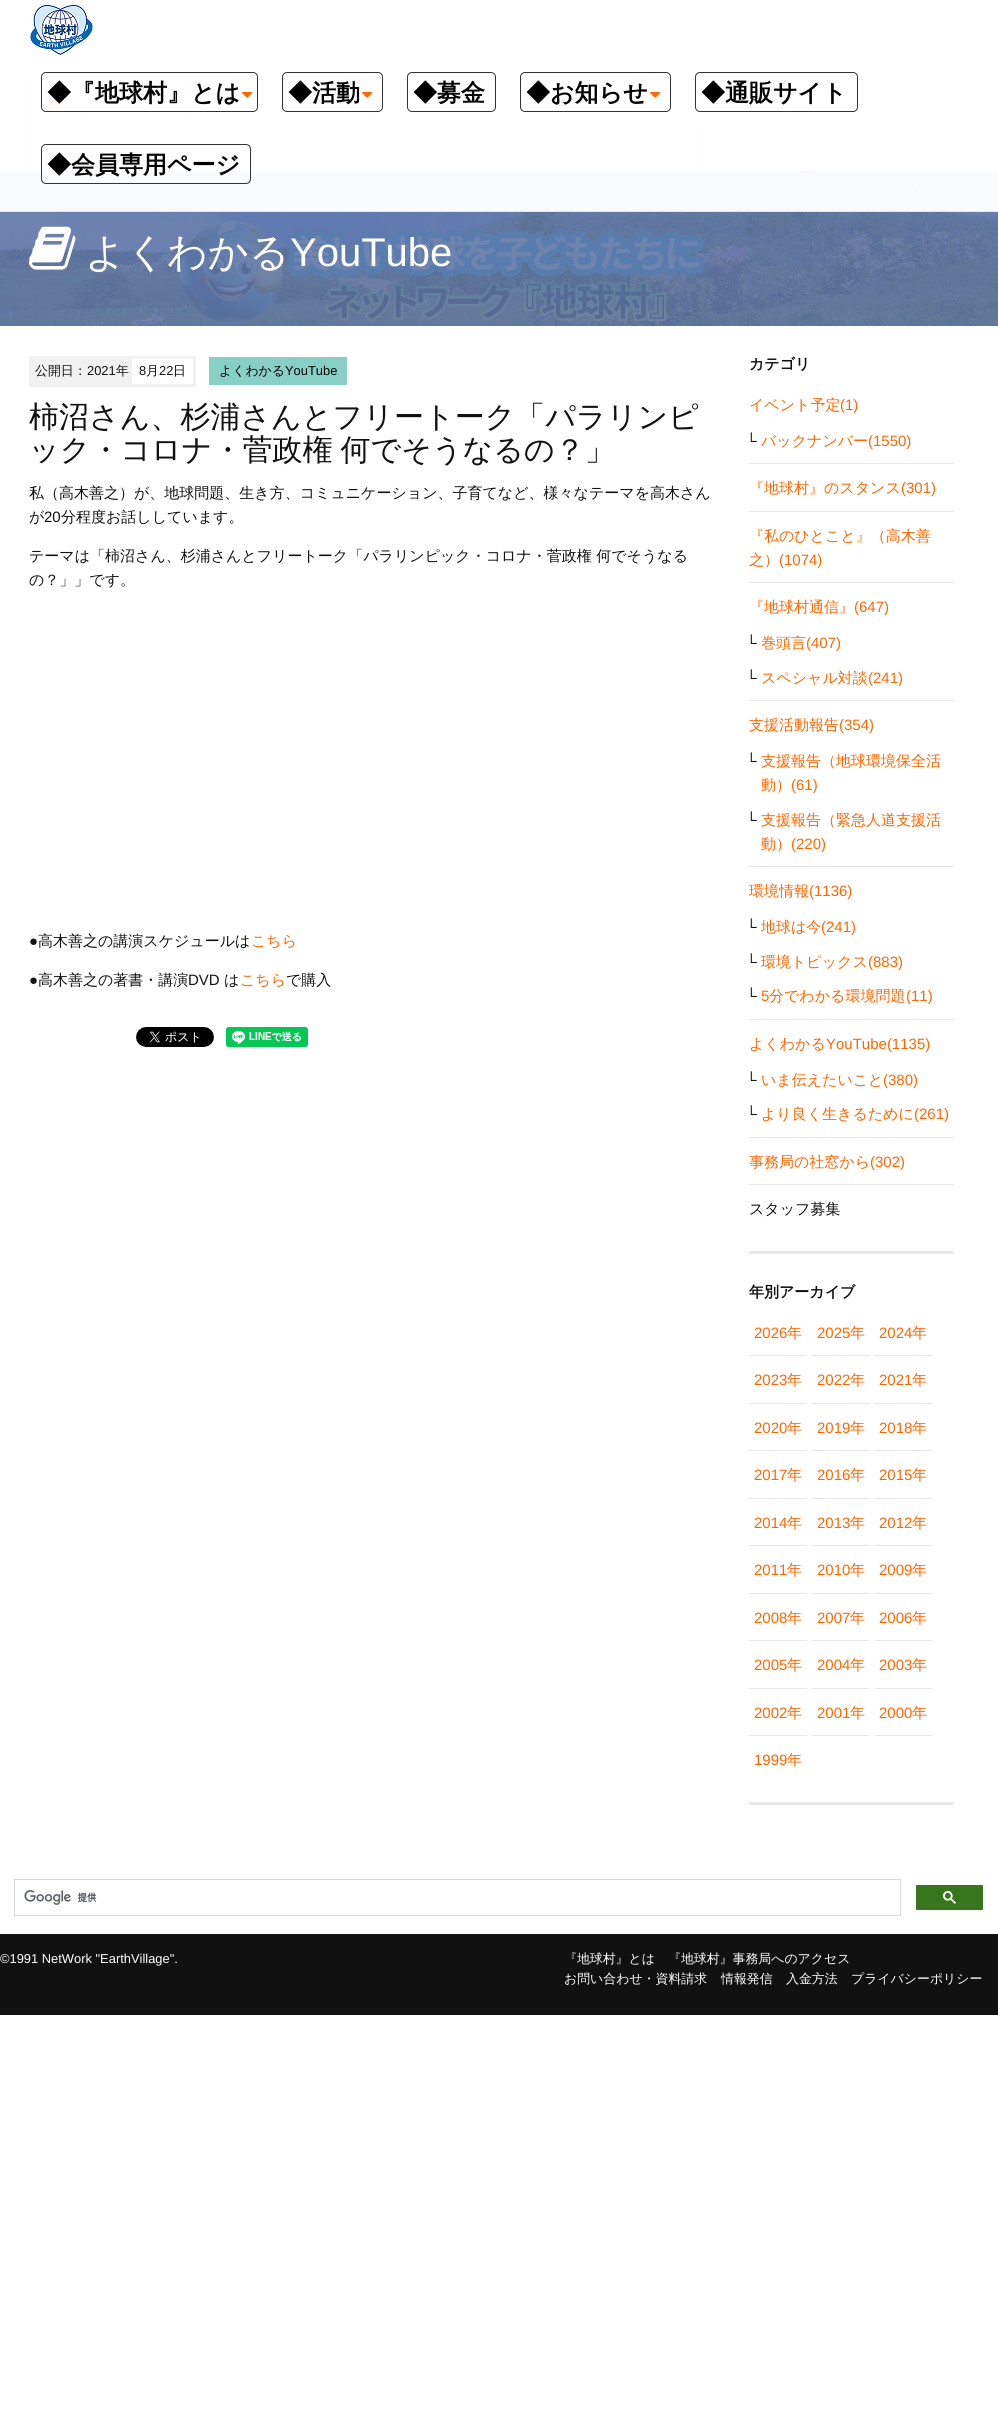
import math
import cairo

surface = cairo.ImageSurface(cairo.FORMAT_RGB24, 998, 2423)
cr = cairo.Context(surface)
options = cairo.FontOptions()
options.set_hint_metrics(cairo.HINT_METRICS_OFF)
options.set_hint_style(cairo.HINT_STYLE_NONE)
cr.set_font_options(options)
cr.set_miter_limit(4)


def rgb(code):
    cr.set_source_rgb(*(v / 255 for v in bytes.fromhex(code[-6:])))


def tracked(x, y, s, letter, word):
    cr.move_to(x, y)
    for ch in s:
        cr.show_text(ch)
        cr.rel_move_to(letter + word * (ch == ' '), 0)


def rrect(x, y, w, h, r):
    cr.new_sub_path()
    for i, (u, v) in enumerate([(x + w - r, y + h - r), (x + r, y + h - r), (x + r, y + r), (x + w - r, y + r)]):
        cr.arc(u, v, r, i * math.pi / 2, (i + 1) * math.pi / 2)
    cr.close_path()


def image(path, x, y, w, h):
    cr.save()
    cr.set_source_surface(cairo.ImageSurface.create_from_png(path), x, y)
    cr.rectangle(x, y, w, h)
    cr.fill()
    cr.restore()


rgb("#ffffff")
cr.paint()
for x, y, w, h, color in [
    (0, 80, 998, 90, "#f6f6f6"),
    (0, 170, 998, 1, "#e9e9e9"),
    (29, 80, 1, 90, "#e9e9e9"),
    (79, 80, 1, 45, "#e9e9e9"),
]:
    rgb(color)
    cr.rectangle(x, y, w, h)
    cr.fill()
cr.new_path()
cr.move_to(79, 126)
cr.line_to(79, 80)
cr.line_to(90, 103)
cr.close_path()
cr.fill()
cr.rectangle(186, 80, 1, 45)
cr.fill()
cr.new_path()
cr.move_to(186, 126)
cr.line_to(186, 80)
cr.line_to(197, 103)
cr.close_path()
cr.fill()
cr.rectangle(369, 80, 1, 45)
cr.fill()
cr.new_path()
cr.move_to(369, 126)
cr.line_to(369, 80)
cr.line_to(380, 103)
cr.close_path()
cr.fill()
rgb("#ffffff")
cr.rectangle(30, 125, 673, 45)
cr.fill()
rgb("#f6f6f6")
cr.new_path()
cr.move_to(78, 126)
cr.line_to(78, 80)
cr.line_to(89, 103)
cr.close_path()
cr.fill()
image("img/1.png", 45, 95, 19, 15)
cr.new_path()
cr.move_to(185, 126)
cr.line_to(185, 80)
cr.line_to(196, 103)
cr.close_path()
cr.fill()
cr.new_path()
cr.move_to(368, 126)
cr.line_to(368, 80)
cr.line_to(379, 103)
cr.close_path()
cr.fill()
rgb("#e9e9e9")
cr.rectangle(703, 125, 1, 45)
cr.fill()
image("img/5.png", 0, 171, 998, 155)
cr.set_source_rgba(1, 1, 1, 0.96)
cr.rectangle(0, 80, 998, 132)
cr.fill()
rgb("#e9e9e9")
cr.new_path()
cr.move_to(998, 212)
cr.line_to(0, 212)
cr.line_to(1, 211)
cr.line_to(997, 211)
cr.close_path()
cr.fill()
image("img/2.png", 29, 5, 65, 50)
rrect(41.5, 72.5, 216, 39, 4.5)
rgb("#333333")
cr.set_line_width(1)
cr.stroke()
image("img/3.png", 242, 92, 11, 6)
rrect(282.5, 72.5, 100, 39, 4.5)
cr.stroke()
image("img/4.png", 362, 92, 11, 6)
rrect(407.5, 72.5, 88, 39, 4.5)
cr.stroke()
rrect(520.5, 72.5, 150, 39, 4.5)
cr.stroke()
image("img/4.png", 650, 92, 11, 6)
rrect(695.5, 72.5, 162, 39, 4.5)
cr.stroke()
rrect(41.5, 144.5, 209, 39, 4.5)
cr.stroke()
image("img/6.png", 29, 226, 47, 44)
for x, y, w, h, color in [
    (29, 356, 167, 31, "#f1f1f1"),
    (132, 359, 61, 25, "#ffffff"),
    (209, 357, 138, 28, "#88cfc5"),
]:
    rgb(color)
    cr.rectangle(x, y, w, h)
    cr.fill()
image("img/7.png", 136, 1027, 78, 20)
image("img/8.png", 226, 1027, 82, 20)
for x, y, w, h, color in [
    (749, 1251, 205, 3, "#e9e9e9"),
    (749, 463, 205, 1, "#e9e9e9"),
    (749, 511, 205, 1, "#e9e9e9"),
    (749, 582, 205, 1, "#e9e9e9"),
    (749, 700, 205, 1, "#e9e9e9"),
    (749, 866, 205, 1, "#e9e9e9"),
    (749, 1019, 205, 1, "#e9e9e9"),
    (749, 1137, 205, 1, "#e9e9e9"),
    (749, 1184, 205, 1, "#e9e9e9"),
    (749, 1802, 205, 3, "#e9e9e9"),
    (749, 1355, 58, 1, "#e9e9e9"),
    (812, 1355, 58, 1, "#e9e9e9"),
    (874, 1355, 58, 1, "#e9e9e9"),
    (749, 1403, 58, 1, "#e9e9e9"),
    (812, 1403, 58, 1, "#e9e9e9"),
    (874, 1403, 58, 1, "#e9e9e9"),
    (749, 1450, 58, 1, "#e9e9e9"),
    (812, 1450, 58, 1, "#e9e9e9"),
    (874, 1450, 58, 1, "#e9e9e9"),
    (749, 1498, 58, 1, "#e9e9e9"),
    (812, 1498, 58, 1, "#e9e9e9"),
    (874, 1498, 58, 1, "#e9e9e9"),
    (749, 1545, 58, 1, "#e9e9e9"),
    (812, 1545, 58, 1, "#e9e9e9"),
    (874, 1545, 58, 1, "#e9e9e9"),
    (749, 1593, 58, 1, "#e9e9e9"),
    (812, 1593, 58, 1, "#e9e9e9"),
    (874, 1593, 58, 1, "#e9e9e9"),
    (749, 1640, 58, 1, "#e9e9e9"),
    (812, 1640, 58, 1, "#e9e9e9"),
    (874, 1640, 58, 1, "#e9e9e9"),
    (749, 1688, 58, 1, "#e9e9e9"),
    (812, 1688, 58, 1, "#e9e9e9"),
    (874, 1688, 58, 1, "#e9e9e9"),
    (749, 1735, 58, 1, "#e9e9e9"),
    (812, 1735, 58, 1, "#e9e9e9"),
    (874, 1735, 58, 1, "#e9e9e9"),
]:
    rgb(color)
    cr.rectangle(x, y, w, h)
    cr.fill()
cr.rectangle(14.5, 1879.5, 886, 36)
rgb("#d9d9d9")
cr.stroke()
image("img/9.png", 24, 1890, 73, 15)
rgb("#38761d")
rrect(915.5, 1884.5, 68, 26, 1.5)
cr.fill_preserve()
rgb("#ffffff")
cr.stroke()
image("img/10.png", 943, 1891, 13, 13)
rgb("#111111")
cr.rectangle(0, 1934, 998, 81)
cr.fill()
cr.select_font_face("WenQuanYi Zen Hei", cairo.FONT_SLANT_NORMAL, cairo.FONT_WEIGHT_BOLD)
cr.set_font_size(24)
rgb("#000000")
for x, y, s in [
    (47, 101, "◆『地球村』とは"),
    (288, 101, "◆活動"),
    (413, 101, "◆募金"),
    (526, 101, "◆お知らせ"),
    (701, 101, "◆通販サイト"),
    (47, 173, "◆会員専用ページ"),
]:
    cr.move_to(x, y)
    cr.show_text(s)
cr.select_font_face("WenQuanYi Zen Hei Medium")
cr.set_font_size(40)
rgb("#ffffff")
cr.move_to(85, 266)
cr.show_text("よくわかる")
cr.select_font_face("Liberation Sans")
cr.move_to(290, 266)
cr.show_text("YouTube")
cr.select_font_face("WenQuanYi Zen Hei Medium")
cr.set_font_size(12.9)
rgb("#111111")
cr.move_to(35, 375)
cr.show_text("公開日：")
cr.select_font_face("Liberation Sans")
cr.move_to(87, 375)
cr.show_text("2021")
cr.select_font_face("WenQuanYi Zen Hei Medium")
cr.move_to(116, 375)
cr.show_text("年")
cr.select_font_face("Liberation Sans")
cr.move_to(139, 375)
cr.show_text("8")
cr.select_font_face("WenQuanYi Zen Hei Medium")
cr.move_to(146, 375)
cr.show_text("月")
cr.select_font_face("Liberation Sans")
cr.move_to(159, 375)
cr.show_text("22")
cr.select_font_face("WenQuanYi Zen Hei Medium")
cr.move_to(173, 375)
cr.show_text("日")
rgb("#000000")
cr.move_to(219, 375)
cr.show_text("よくわかる")
cr.select_font_face("Liberation Sans")
cr.move_to(285, 375)
cr.show_text("YouTube")
cr.select_font_face("WenQuanYi Zen Hei Medium")
cr.set_font_size(30)
rgb("#111111")
cr.move_to(29, 427)
cr.show_text("柿沼さん、杉浦さんとフリートーク「パラリンピ")
tracked(29, 460, "ック・コロナ・菅政権 何でそうなるの？」", 0, -1)
cr.set_font_size(15)
cr.move_to(29, 498)
cr.show_text("私（高木善之）が、地球問題、生き方、コミュニケーション、子育てなど、様々なテーマを高木さん")
cr.move_to(29, 522)
cr.show_text("が")
cr.select_font_face("Liberation Sans")
cr.move_to(44, 522)
cr.show_text("20")
cr.select_font_face("WenQuanYi Zen Hei Medium")
for x, y, s in [
    (61, 522, "分程度お話ししています。"),
    (29, 561, "テーマは「柿沼さん、杉浦さんとフリートーク「パラリンピック・コロナ・菅政権 何でそうなる"),
    (29, 585, "の？」」です。"),
]:
    cr.move_to(x, y)
    cr.show_text(s)
cr.select_font_face("Liberation Sans")
cr.move_to(29, 946)
cr.show_text("●")
cr.select_font_face("WenQuanYi Zen Hei Medium")
cr.move_to(38, 946)
cr.show_text("高木善之の講演スケジュールは")
rgb("#ff6600")
cr.move_to(251, 946)
cr.show_text("こちら")
cr.select_font_face("Liberation Sans")
rgb("#111111")
cr.move_to(29, 985)
cr.show_text("●")
cr.select_font_face("WenQuanYi Zen Hei Medium")
cr.move_to(38, 985)
cr.show_text("高木善之の著書・講演")
cr.select_font_face("Liberation Sans")
cr.move_to(188, 985)
cr.show_text("DVD")
cr.select_font_face("WenQuanYi Zen Hei Medium")
cr.move_to(224, 985)
cr.show_text("は")
rgb("#ff6600")
cr.move_to(240, 985)
cr.show_text("こちら")
rgb("#111111")
cr.move_to(286, 985)
cr.show_text("で購入")
cr.select_font_face("WenQuanYi Zen Hei", cairo.FONT_SLANT_NORMAL, cairo.FONT_WEIGHT_BOLD)
cr.move_to(749, 369)
cr.show_text("カテゴリ")
cr.select_font_face("WenQuanYi Zen Hei Medium")
rgb("#ff6600")
cr.move_to(749, 410)
cr.show_text("イベント予定")
cr.select_font_face("Liberation Sans")
cr.move_to(840, 410)
cr.show_text("(1)")
rgb("#111111")
cr.move_to(746, 446)
cr.show_text("└")
cr.select_font_face("WenQuanYi Zen Hei Medium")
rgb("#ff6600")
cr.move_to(761, 446)
cr.show_text("バックナンバー")
cr.select_font_face("Liberation Sans")
cr.move_to(868, 446)
cr.show_text("(1550)")
cr.select_font_face("WenQuanYi Zen Hei Medium")
cr.move_to(749, 493)
cr.show_text("『地球村』のスタンス")
cr.select_font_face("Liberation Sans")
cr.move_to(901, 493)
cr.show_text("(301)")
cr.select_font_face("WenQuanYi Zen Hei Medium")
cr.move_to(749, 541)
cr.show_text("『私のひとこと』（高木善")
cr.move_to(749, 565)
cr.show_text("之）")
cr.select_font_face("Liberation Sans")
cr.move_to(779, 565)
cr.show_text("(1074)")
cr.select_font_face("WenQuanYi Zen Hei Medium")
cr.move_to(749, 612)
cr.show_text("『地球村通信』")
cr.select_font_face("Liberation Sans")
cr.move_to(854, 612)
cr.show_text("(647)")
rgb("#111111")
cr.move_to(746, 648)
cr.show_text("└")
cr.select_font_face("WenQuanYi Zen Hei Medium")
rgb("#ff6600")
cr.move_to(761, 648)
cr.show_text("巻頭言")
cr.select_font_face("Liberation Sans")
cr.move_to(806, 648)
cr.show_text("(407)")
rgb("#111111")
cr.move_to(746, 683)
cr.show_text("└")
cr.select_font_face("WenQuanYi Zen Hei Medium")
rgb("#ff6600")
cr.move_to(761, 683)
cr.show_text("スペシャル対談")
cr.select_font_face("Liberation Sans")
cr.move_to(868, 683)
cr.show_text("(241)")
cr.select_font_face("WenQuanYi Zen Hei Medium")
cr.move_to(749, 730)
cr.show_text("支援活動報告")
cr.select_font_face("Liberation Sans")
cr.move_to(839, 730)
cr.show_text("(354)")
rgb("#111111")
cr.move_to(746, 766)
cr.show_text("└")
cr.select_font_face("WenQuanYi Zen Hei Medium")
rgb("#ff6600")
cr.move_to(761, 766)
cr.show_text("支援報告（地球環境保全活")
cr.move_to(761, 790)
cr.show_text("動）")
cr.select_font_face("Liberation Sans")
cr.move_to(791, 790)
cr.show_text("(61)")
rgb("#111111")
cr.move_to(746, 825)
cr.show_text("└")
cr.select_font_face("WenQuanYi Zen Hei Medium")
rgb("#ff6600")
cr.move_to(761, 825)
cr.show_text("支援報告（緊急人道支援活")
cr.move_to(761, 849)
cr.show_text("動）")
cr.select_font_face("Liberation Sans")
cr.move_to(791, 849)
cr.show_text("(220)")
cr.select_font_face("WenQuanYi Zen Hei Medium")
cr.move_to(749, 896)
cr.show_text("環境情報")
cr.select_font_face("Liberation Sans")
cr.move_to(809, 896)
cr.show_text("(1136)")
rgb("#111111")
cr.move_to(746, 932)
cr.show_text("└")
cr.select_font_face("WenQuanYi Zen Hei Medium")
rgb("#ff6600")
cr.move_to(761, 932)
cr.show_text("地球は今")
cr.select_font_face("Liberation Sans")
cr.move_to(821, 932)
cr.show_text("(241)")
rgb("#111111")
cr.move_to(746, 967)
cr.show_text("└")
cr.select_font_face("WenQuanYi Zen Hei Medium")
rgb("#ff6600")
cr.move_to(761, 967)
cr.show_text("環境トピックス")
cr.select_font_face("Liberation Sans")
cr.move_to(868, 967)
cr.show_text("(883)")
rgb("#111111")
cr.move_to(746, 1001)
cr.show_text("└")
rgb("#ff6600")
cr.move_to(761, 1001)
cr.show_text("5")
cr.select_font_face("WenQuanYi Zen Hei Medium")
cr.move_to(769, 1001)
cr.show_text("分でわかる環境問題")
cr.select_font_face("Liberation Sans")
cr.move_to(906, 1001)
cr.show_text("(11)")
cr.select_font_face("WenQuanYi Zen Hei Medium")
cr.move_to(749, 1049)
cr.show_text("よくわかる")
cr.select_font_face("Liberation Sans")
cr.move_to(826, 1049)
cr.show_text("YouTube(1135)")
rgb("#111111")
cr.move_to(746, 1085)
cr.show_text("└")
cr.select_font_face("WenQuanYi Zen Hei Medium")
rgb("#ff6600")
cr.move_to(761, 1085)
cr.show_text("いま伝えたいこと")
cr.select_font_face("Liberation Sans")
cr.move_to(883, 1085)
cr.show_text("(380)")
rgb("#111111")
cr.move_to(746, 1119)
cr.show_text("└")
cr.select_font_face("WenQuanYi Zen Hei Medium")
rgb("#ff6600")
cr.move_to(761, 1119)
cr.show_text("より良く生きるために")
cr.select_font_face("Liberation Sans")
cr.move_to(914, 1119)
cr.show_text("(261)")
cr.select_font_face("WenQuanYi Zen Hei Medium")
cr.move_to(749, 1167)
cr.show_text("事務局の社窓から")
cr.select_font_face("Liberation Sans")
cr.move_to(870, 1167)
cr.show_text("(302)")
cr.select_font_face("WenQuanYi Zen Hei Medium")
rgb("#111111")
cr.move_to(749, 1214)
cr.show_text("スタッフ募集")
cr.select_font_face("WenQuanYi Zen Hei", cairo.FONT_SLANT_NORMAL, cairo.FONT_WEIGHT_BOLD)
cr.move_to(749, 1297)
cr.show_text("年別アーカイブ")
cr.select_font_face("Liberation Sans")
rgb("#ff6600")
cr.move_to(754, 1338)
cr.show_text("2026")
cr.select_font_face("WenQuanYi Zen Hei Medium")
cr.move_to(787, 1338)
cr.show_text("年")
cr.select_font_face("Liberation Sans")
cr.move_to(817, 1338)
cr.show_text("2025")
cr.select_font_face("WenQuanYi Zen Hei Medium")
cr.move_to(850, 1338)
cr.show_text("年")
cr.select_font_face("Liberation Sans")
cr.move_to(879, 1338)
cr.show_text("2024")
cr.select_font_face("WenQuanYi Zen Hei Medium")
cr.move_to(912, 1338)
cr.show_text("年")
cr.select_font_face("Liberation Sans")
cr.move_to(754, 1385)
cr.show_text("2023")
cr.select_font_face("WenQuanYi Zen Hei Medium")
cr.move_to(787, 1385)
cr.show_text("年")
cr.select_font_face("Liberation Sans")
cr.move_to(817, 1385)
cr.show_text("2022")
cr.select_font_face("WenQuanYi Zen Hei Medium")
cr.move_to(850, 1385)
cr.show_text("年")
cr.select_font_face("Liberation Sans")
cr.move_to(879, 1385)
cr.show_text("2021")
cr.select_font_face("WenQuanYi Zen Hei Medium")
cr.move_to(912, 1385)
cr.show_text("年")
cr.select_font_face("Liberation Sans")
cr.move_to(754, 1433)
cr.show_text("2020")
cr.select_font_face("WenQuanYi Zen Hei Medium")
cr.move_to(787, 1433)
cr.show_text("年")
cr.select_font_face("Liberation Sans")
cr.move_to(817, 1433)
cr.show_text("2019")
cr.select_font_face("WenQuanYi Zen Hei Medium")
cr.move_to(850, 1433)
cr.show_text("年")
cr.select_font_face("Liberation Sans")
cr.move_to(879, 1433)
cr.show_text("2018")
cr.select_font_face("WenQuanYi Zen Hei Medium")
cr.move_to(912, 1433)
cr.show_text("年")
cr.select_font_face("Liberation Sans")
cr.move_to(754, 1480)
cr.show_text("2017")
cr.select_font_face("WenQuanYi Zen Hei Medium")
cr.move_to(787, 1480)
cr.show_text("年")
cr.select_font_face("Liberation Sans")
cr.move_to(817, 1480)
cr.show_text("2016")
cr.select_font_face("WenQuanYi Zen Hei Medium")
cr.move_to(850, 1480)
cr.show_text("年")
cr.select_font_face("Liberation Sans")
cr.move_to(879, 1480)
cr.show_text("2015")
cr.select_font_face("WenQuanYi Zen Hei Medium")
cr.move_to(912, 1480)
cr.show_text("年")
cr.select_font_face("Liberation Sans")
cr.move_to(754, 1528)
cr.show_text("2014")
cr.select_font_face("WenQuanYi Zen Hei Medium")
cr.move_to(787, 1528)
cr.show_text("年")
cr.select_font_face("Liberation Sans")
cr.move_to(817, 1528)
cr.show_text("2013")
cr.select_font_face("WenQuanYi Zen Hei Medium")
cr.move_to(850, 1528)
cr.show_text("年")
cr.select_font_face("Liberation Sans")
cr.move_to(879, 1528)
cr.show_text("2012")
cr.select_font_face("WenQuanYi Zen Hei Medium")
cr.move_to(912, 1528)
cr.show_text("年")
cr.select_font_face("Liberation Sans")
cr.move_to(754, 1575)
cr.show_text("2011")
cr.select_font_face("WenQuanYi Zen Hei Medium")
cr.move_to(787, 1575)
cr.show_text("年")
cr.select_font_face("Liberation Sans")
cr.move_to(817, 1575)
cr.show_text("2010")
cr.select_font_face("WenQuanYi Zen Hei Medium")
cr.move_to(850, 1575)
cr.show_text("年")
cr.select_font_face("Liberation Sans")
cr.move_to(879, 1575)
cr.show_text("2009")
cr.select_font_face("WenQuanYi Zen Hei Medium")
cr.move_to(912, 1575)
cr.show_text("年")
cr.select_font_face("Liberation Sans")
cr.move_to(754, 1623)
cr.show_text("2008")
cr.select_font_face("WenQuanYi Zen Hei Medium")
cr.move_to(787, 1623)
cr.show_text("年")
cr.select_font_face("Liberation Sans")
cr.move_to(817, 1623)
cr.show_text("2007")
cr.select_font_face("WenQuanYi Zen Hei Medium")
cr.move_to(850, 1623)
cr.show_text("年")
cr.select_font_face("Liberation Sans")
cr.move_to(879, 1623)
cr.show_text("2006")
cr.select_font_face("WenQuanYi Zen Hei Medium")
cr.move_to(912, 1623)
cr.show_text("年")
cr.select_font_face("Liberation Sans")
cr.move_to(754, 1670)
cr.show_text("2005")
cr.select_font_face("WenQuanYi Zen Hei Medium")
cr.move_to(787, 1670)
cr.show_text("年")
cr.select_font_face("Liberation Sans")
cr.move_to(817, 1670)
cr.show_text("2004")
cr.select_font_face("WenQuanYi Zen Hei Medium")
cr.move_to(850, 1670)
cr.show_text("年")
cr.select_font_face("Liberation Sans")
cr.move_to(879, 1670)
cr.show_text("2003")
cr.select_font_face("WenQuanYi Zen Hei Medium")
cr.move_to(912, 1670)
cr.show_text("年")
cr.select_font_face("Liberation Sans")
cr.move_to(754, 1718)
cr.show_text("2002")
cr.select_font_face("WenQuanYi Zen Hei Medium")
cr.move_to(787, 1718)
cr.show_text("年")
cr.select_font_face("Liberation Sans")
cr.move_to(817, 1718)
cr.show_text("2001")
cr.select_font_face("WenQuanYi Zen Hei Medium")
cr.move_to(850, 1718)
cr.show_text("年")
cr.select_font_face("Liberation Sans")
cr.move_to(879, 1718)
cr.show_text("2000")
cr.select_font_face("WenQuanYi Zen Hei Medium")
cr.move_to(912, 1718)
cr.show_text("年")
cr.select_font_face("Liberation Sans")
cr.move_to(754, 1765)
cr.show_text("1999")
cr.select_font_face("WenQuanYi Zen Hei Medium")
cr.move_to(787, 1765)
cr.show_text("年")
cr.select_font_face("Liberation Sans")
cr.set_font_size(12.9)
rgb("#ffffff")
cr.move_to(0, 1963)
cr.show_text("©1991 NetWork \"EarthVillage\".")
cr.select_font_face("WenQuanYi Zen Hei Medium")
for x, y, s in [
    (564, 1963, "『地球村』とは"),
    (668, 1963, "『地球村』事務局へのアクセス"),
    (564, 1983, "お問い合わせ・資料請求"),
    (721, 1983, "情報発信"),
    (786, 1983, "入金方法"),
    (851, 1983, "プライバシーポリシー"),
]:
    cr.move_to(x, y)
    cr.show_text(s)
surface.write_to_png("page.png")
